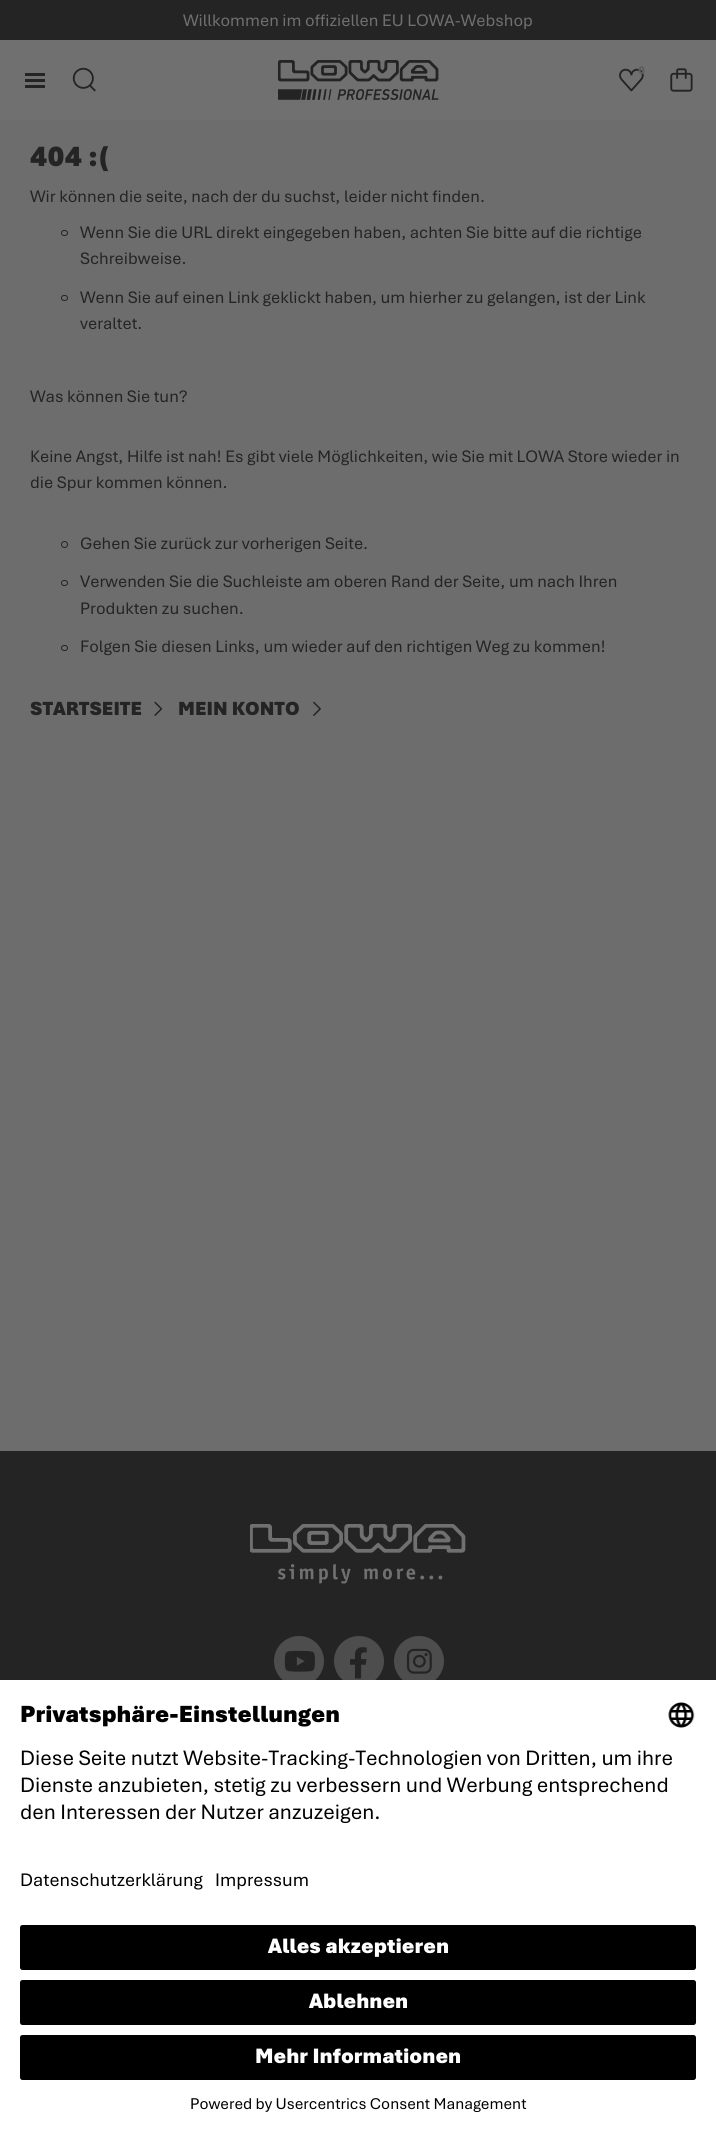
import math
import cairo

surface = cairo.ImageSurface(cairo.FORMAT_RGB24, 716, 2133)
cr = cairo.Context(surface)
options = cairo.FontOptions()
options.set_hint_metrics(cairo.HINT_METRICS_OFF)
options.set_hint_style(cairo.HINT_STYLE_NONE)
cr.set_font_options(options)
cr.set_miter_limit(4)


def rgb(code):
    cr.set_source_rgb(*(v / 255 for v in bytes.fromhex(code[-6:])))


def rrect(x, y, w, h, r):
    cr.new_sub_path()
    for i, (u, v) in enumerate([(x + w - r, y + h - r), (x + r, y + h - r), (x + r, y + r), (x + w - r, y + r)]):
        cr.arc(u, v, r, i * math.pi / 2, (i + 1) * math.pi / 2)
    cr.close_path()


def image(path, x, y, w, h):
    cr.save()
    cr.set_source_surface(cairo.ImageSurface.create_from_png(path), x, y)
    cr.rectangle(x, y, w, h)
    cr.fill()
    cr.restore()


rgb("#6d6d6d")
cr.paint()
for x, y, w, h, color in [
    (0, 0, 716, 40, "#242424"),
    (0, 40, 716, 80, "#707070"),
    (25, 79, 20, 3, "#242424"),
    (25, 73, 20, 3, "#242424"),
    (25, 85, 20, 3, "#242424"),
]:
    rgb(color)
    cr.rectangle(x, y, w, h)
    cr.fill()
image("img/1.png", 72, 67, 24, 25)
image("img/2.png", 278, 60, 161, 40)
image("img/3.png", 619, 68, 25, 24)
image("img/4.png", 670, 68, 23, 24)
rrect(61.5, 230.5, 6, 5, 2.5)
cr.set_line_width(1)
cr.stroke()
rrect(61.5, 295.5, 6, 5, 2.5)
cr.stroke()
cr.arc(64.5, 544.5, 3, 0, 2 * math.pi)
cr.stroke()
rrect(61.5, 580.5, 6, 5, 2.5)
cr.stroke()
rrect(61.5, 645.5, 6, 5, 2.5)
cr.stroke()
image("img/5.png", 154, 701, 9, 15)
image("img/6.png", 313, 701, 8, 15)
cr.rectangle(0, 1451, 716, 229)
cr.fill()
image("img/7.png", 250, 1524, 216, 60)
rgb("#4d4d4d")
cr.arc(299, 1661, 25, 0, 2 * math.pi)
cr.fill()
image("img/8.png", 284, 1650, 31, 22)
cr.arc(359, 1661, 25, 0, 2 * math.pi)
cr.fill()
image("img/9.png", 350, 1647, 17, 32)
cr.arc(419, 1661, 25, 0, 2 * math.pi)
cr.fill()
image("img/10.png", 406, 1648, 26, 26)
rgb("#ffffff")
cr.rectangle(0, 1680, 716, 453)
cr.fill()
image("img/11.png", 668, 1702, 27, 26)
rgb("#000000")
rrect(20, 1925, 676, 45, 2.5)
cr.fill()
rrect(20, 1980, 676, 45, 2.5)
cr.fill()
rrect(20, 2035, 676, 45, 2.5)
cr.fill()
cr.select_font_face("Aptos")
cr.set_font_size(17.5)
rgb("#707070")
cr.move_to(183, 26)
cr.show_text("Willkommen im offiziellen EU LOWA-Webshop")
cr.select_font_face("Aptos Black")
cr.set_font_size(12)
rgb("#5e5e5e")
cr.move_to(638, 74)
cr.show_text("0")
cr.set_font_size(30)
rgb("#242424")
cr.move_to(30, 166)
cr.show_text("404 :(")
cr.select_font_face("Aptos")
cr.set_font_size(17.5)
for x, y, s in [
    (30, 202, "Wir können die seite, nach der du suchst, leider nicht finden."),
    (80, 238, "Wenn Sie die URL direkt eingegeben haben, achten Sie bitte auf die richtige"),
    (80, 264, "Schreibweise."),
    (80, 303, "Wenn Sie auf einen Link geklickt haben, um hierher zu gelangen, ist der Link"),
    (80, 329, "veraltet."),
    (30, 402, "Was können Sie tun?"),
    (30, 462, "Keine Angst, Hilfe ist nah! Es gibt viele Möglichkeiten, wie Sie mit LOWA Store wieder in"),
    (30, 488, "die Spur kommen können."),
    (80, 549, "Gehen Sie zurück zur vorherigen Seite."),
    (80, 587, "Verwenden Sie die Suchleiste am oberen Rand der Seite, um nach Ihren"),
    (80, 614, "Produkten zu suchen."),
    (80, 652, "Folgen Sie diesen Links, um wieder auf den richtigen Weg zu kommen!"),
]:
    cr.move_to(x, y)
    cr.show_text(s)
cr.select_font_face("Aptos Black")
cr.set_font_size(20)
cr.move_to(30, 715)
cr.show_text("STARTSEITE")
cr.move_to(178, 715)
cr.show_text("MEIN KONTO")
cr.set_font_size(24.6)
rgb("#000000")
cr.move_to(20, 1722)
cr.show_text("Privatsphäre-Einstellungen")
cr.select_font_face("Aptos")
cr.set_font_size(21.9)
for x, y, s in [
    (20, 1765, "Diese Seite nutzt Website-Tracking-Technologien von Dritten, um ihre"),
    (20, 1792, "Dienste anzubieten, stetig zu verbessern und Werbung entsprechend"),
    (20, 1819, "den Interessen der Nutzer anzuzeigen."),
]:
    cr.move_to(x, y)
    cr.show_text(s)
cr.set_font_size(19.1)
cr.move_to(20, 1886)
cr.show_text("Datenschutzerklärung")
cr.move_to(215, 1886)
cr.show_text("Impressum")
cr.select_font_face("Aptos Black")
cr.set_font_size(21.9)
rgb("#ffffff")
for x, y, s in [
    (268, 1953, "Alles akzeptieren"),
    (309, 2008, "Ablehnen"),
    (255, 2063, "Mehr Informationen"),
]:
    cr.move_to(x, y)
    cr.show_text(s)
cr.select_font_face("Aptos")
cr.set_font_size(16.4)
rgb("#000000")
cr.move_to(190, 2109)
cr.show_text("Powered by Usercentrics Consent Management")
surface.write_to_png("page.png")
